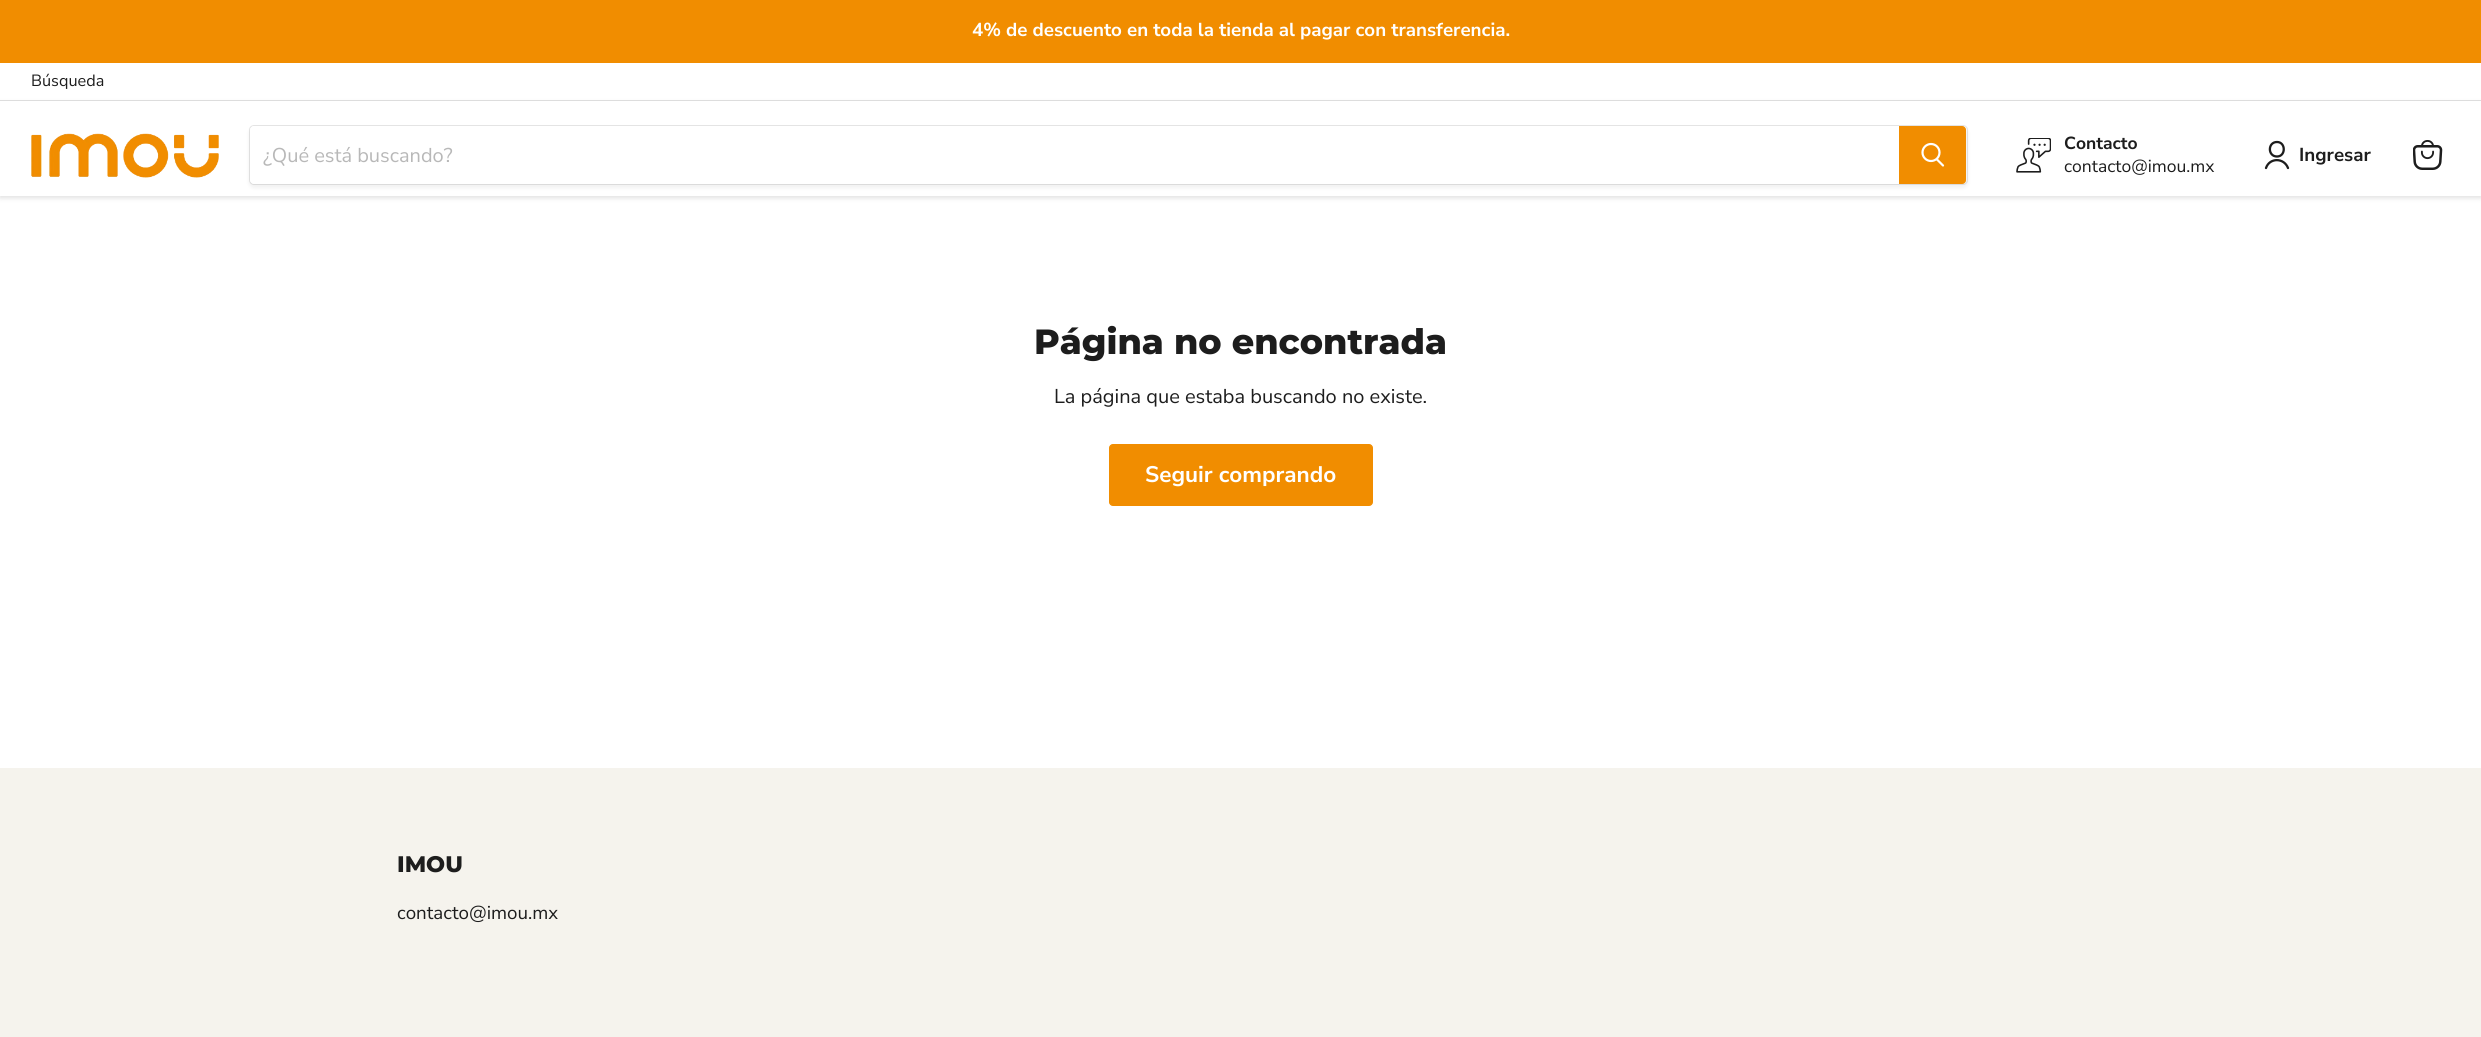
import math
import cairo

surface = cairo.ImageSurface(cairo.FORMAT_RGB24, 2481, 1037)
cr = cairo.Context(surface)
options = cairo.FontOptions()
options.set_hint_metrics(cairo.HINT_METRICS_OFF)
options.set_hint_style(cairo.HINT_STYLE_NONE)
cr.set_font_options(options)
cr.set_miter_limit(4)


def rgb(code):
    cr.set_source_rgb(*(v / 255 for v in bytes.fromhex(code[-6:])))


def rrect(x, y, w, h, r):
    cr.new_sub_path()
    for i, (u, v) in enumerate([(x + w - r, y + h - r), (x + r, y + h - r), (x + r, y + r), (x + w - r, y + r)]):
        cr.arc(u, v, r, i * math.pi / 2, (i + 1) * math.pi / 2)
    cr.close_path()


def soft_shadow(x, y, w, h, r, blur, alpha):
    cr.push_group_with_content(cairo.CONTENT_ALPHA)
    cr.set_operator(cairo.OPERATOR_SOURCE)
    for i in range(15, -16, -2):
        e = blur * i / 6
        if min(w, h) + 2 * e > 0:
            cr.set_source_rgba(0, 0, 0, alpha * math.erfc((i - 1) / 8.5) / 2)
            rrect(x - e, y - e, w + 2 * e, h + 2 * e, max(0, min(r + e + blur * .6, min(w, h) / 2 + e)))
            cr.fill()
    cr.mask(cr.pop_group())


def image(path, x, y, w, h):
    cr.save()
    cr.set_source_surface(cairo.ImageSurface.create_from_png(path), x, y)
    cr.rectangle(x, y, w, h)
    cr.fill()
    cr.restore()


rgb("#ffffff")
cr.paint()
rgb("#f18d00")
cr.rectangle(0, 0, 2481, 63)
cr.fill()
rgb("#808080")
soft_shadow(0, 103, 2481, 95, 0, 2.5, 0.25)
rgb("#dddddd")
cr.rectangle(0, 100, 2481, 1)
cr.fill()
rgb("#ffffff")
cr.rectangle(0, 101, 2481, 95)
cr.fill()
image("img/1.png", 31, 133, 188, 45)
rgb("#808080")
soft_shadow(249, 128, 1719, 60, 5, 2, 0.11)
rrect(249.5, 125.5, 1718, 59, 4.5)
cr.set_source_rgba(0.502, 0.502, 0.502, 0.2)
cr.set_line_width(1)
cr.stroke()
rgb("#ffffff")
cr.new_path()
cr.move_to(254, 126)
cr.line_to(1899, 126)
cr.line_to(1899, 184)
cr.line_to(254, 184)
cr.curve_to(252, 184, 250, 182, 250, 180)
cr.line_to(250, 130)
cr.curve_to(250, 128, 252, 126, 254, 126)
cr.close_path()
cr.fill()
rgb("#f18d00")
cr.new_path()
cr.move_to(1899.5, 126.5)
cr.line_to(1962, 126.5)
cr.curve_to(1964, 126.5, 1965.5, 128, 1965.5, 130)
cr.line_to(1965.5, 180)
cr.curve_to(1965.5, 182, 1964, 183.5, 1962, 183.5)
cr.line_to(1899.5, 183.5)
cr.close_path()
cr.fill_preserve()
cr.stroke()
cr.new_path()
cr.move_to(1943, 165.5)
cr.line_to(1937, 159.5)
rgb("#ffffff")
cr.set_line_width(2.2)
cr.set_line_cap(cairo.LINE_CAP_ROUND)
cr.stroke()
cr.arc(1931, 152.5, 8.5, 0, 2 * math.pi)
cr.set_line_cap(cairo.LINE_CAP_BUTT)
cr.stroke()
image("img/2.png", 2016, 138, 35, 35)
cr.new_path()
cr.move_to(2277, 156.5)
cr.curve_to(2286, 156.5, 2286, 142, 2277, 142)
cr.curve_to(2267.5, 142, 2267.5, 156.5, 2277, 156.5)
cr.close_path()
cr.move_to(2288, 168)
cr.curve_to(2284, 157.5, 2269.5, 157.5, 2266, 168)
rgb("#1d1d1d")
cr.set_line_width(2.3)
cr.set_line_cap(cairo.LINE_CAP_ROUND)
cr.set_line_join(cairo.LINE_JOIN_ROUND)
cr.stroke()
image("img/3.png", 2413, 140, 30, 30)
rgb("#f18d00")
rrect(1109.5, 444.5, 263, 61, 3.5)
cr.fill_preserve()
cr.set_line_width(1)
cr.set_line_cap(cairo.LINE_CAP_BUTT)
cr.set_line_join(cairo.LINE_JOIN_MITER)
cr.stroke()
rgb("#f5f3ed")
cr.rectangle(0, 768, 2481, 269)
cr.fill()
cr.select_font_face("Nunito Sans", cairo.FONT_SLANT_NORMAL, cairo.FONT_WEIGHT_BOLD)
cr.set_font_size(18.75)
rgb("#ffffff")
cr.move_to(972, 36)
cr.show_text("4% de descuento en toda la tienda al pagar con transferencia.")
cr.select_font_face("Nunito Sans")
cr.set_font_size(16.25)
rgb("#1d1d1d")
cr.move_to(31, 86)
cr.show_text("Búsqueda")
cr.set_font_size(20)
rgb("#b8b8b8")
cr.move_to(263, 162)
cr.show_text("¿Qué está buscando?")
cr.select_font_face("Nunito Sans", cairo.FONT_SLANT_NORMAL, cairo.FONT_WEIGHT_BOLD)
cr.set_font_size(17.5)
rgb("#1d1d1d")
cr.move_to(2064, 149)
cr.show_text("Contacto")
cr.select_font_face("Nunito Sans")
cr.move_to(2064, 172)
cr.show_text("contacto@imou.mx")
cr.select_font_face("Nunito Sans", cairo.FONT_SLANT_NORMAL, cairo.FONT_WEIGHT_BOLD)
cr.set_font_size(18.75)
cr.move_to(2299, 161)
cr.show_text("Ingresar")
cr.select_font_face("Montserrat ExtraBold")
cr.set_font_size(35)
cr.move_to(1034, 354)
cr.show_text("Página no encontrada")
cr.select_font_face("Nunito Sans")
cr.set_font_size(20)
cr.move_to(1054, 403)
cr.show_text("La página que estaba buscando no existe.")
cr.select_font_face("Nunito Sans", cairo.FONT_SLANT_NORMAL, cairo.FONT_WEIGHT_BOLD)
cr.set_font_size(22.5)
rgb("#ffffff")
cr.move_to(1145, 482)
cr.show_text("Seguir comprando")
cr.select_font_face("Montserrat ExtraBold")
rgb("#1d1d1d")
cr.move_to(397, 872)
cr.show_text("IMOU")
cr.select_font_face("Nunito Sans")
cr.set_font_size(18.75)
cr.move_to(397, 919)
cr.show_text("contacto@imou.mx")
surface.write_to_png("page.png")
